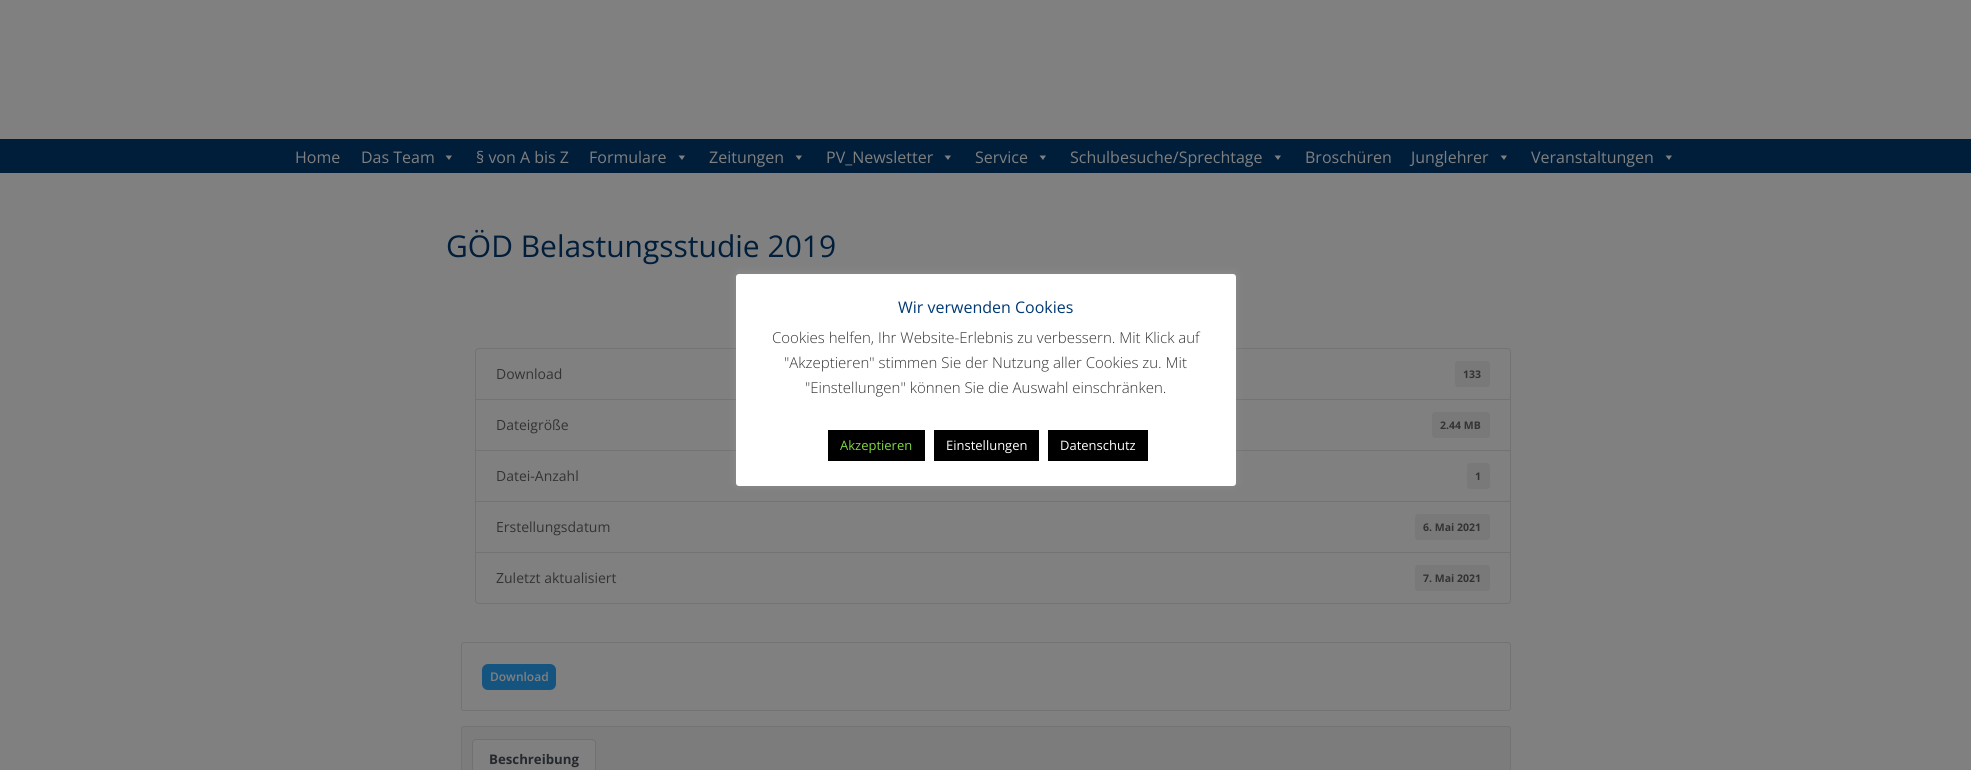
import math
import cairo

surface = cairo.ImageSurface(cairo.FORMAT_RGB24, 1971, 770)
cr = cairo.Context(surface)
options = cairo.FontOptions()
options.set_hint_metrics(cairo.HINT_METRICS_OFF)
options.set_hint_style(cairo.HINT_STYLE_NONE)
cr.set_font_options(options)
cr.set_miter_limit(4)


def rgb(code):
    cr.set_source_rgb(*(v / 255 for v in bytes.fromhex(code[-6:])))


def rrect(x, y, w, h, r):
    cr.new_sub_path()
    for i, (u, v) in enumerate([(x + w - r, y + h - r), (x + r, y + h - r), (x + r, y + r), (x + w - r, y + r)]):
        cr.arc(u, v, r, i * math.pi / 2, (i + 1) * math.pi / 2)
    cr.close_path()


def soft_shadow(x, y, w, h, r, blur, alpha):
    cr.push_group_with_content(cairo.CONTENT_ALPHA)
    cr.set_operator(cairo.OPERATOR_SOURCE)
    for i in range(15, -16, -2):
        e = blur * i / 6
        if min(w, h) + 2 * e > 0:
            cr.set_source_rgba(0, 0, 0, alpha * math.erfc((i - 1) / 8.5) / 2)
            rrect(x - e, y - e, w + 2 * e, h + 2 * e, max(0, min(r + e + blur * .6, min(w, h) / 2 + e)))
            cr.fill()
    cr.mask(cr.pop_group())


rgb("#808080")
cr.paint()
rgb("#001d3a")
cr.rectangle(0, 139, 1971, 34)
cr.fill()
rgb("#808080")
cr.new_path()
cr.move_to(452, 155.5)
cr.line_to(449, 160)
cr.line_to(445.5, 155.5)
cr.close_path()
cr.fill()
cr.new_path()
cr.move_to(685, 155.5)
cr.line_to(682, 160)
cr.line_to(678.5, 155.5)
cr.close_path()
cr.fill()
cr.new_path()
cr.move_to(802, 155.5)
cr.line_to(799, 160)
cr.line_to(795.5, 155.5)
cr.close_path()
cr.fill()
cr.new_path()
cr.move_to(951, 155.5)
cr.line_to(948, 160)
cr.line_to(944.5, 155.5)
cr.close_path()
cr.fill()
cr.new_path()
cr.move_to(1046, 155.5)
cr.line_to(1043, 160)
cr.line_to(1039.5, 155.5)
cr.close_path()
cr.fill()
cr.new_path()
cr.move_to(1281, 155.5)
cr.line_to(1278, 160)
cr.line_to(1274.5, 155.5)
cr.close_path()
cr.fill()
cr.new_path()
cr.move_to(1507, 155.5)
cr.line_to(1504, 160)
cr.line_to(1500.5, 155.5)
cr.close_path()
cr.fill()
cr.new_path()
cr.move_to(1672, 155.5)
cr.line_to(1669, 160)
cr.line_to(1665.5, 155.5)
cr.close_path()
cr.fill()
cr.new_path()
cr.move_to(479, 348.5)
cr.line_to(1507, 348.5)
cr.curve_to(1509, 348.5, 1510.5, 350, 1510.5, 352)
cr.line_to(1510.5, 399.5)
cr.line_to(475.5, 399.5)
cr.line_to(475.5, 352)
cr.curve_to(475.5, 350, 477, 348.5, 479, 348.5)
cr.close_path()
rgb("#737373")
cr.set_line_width(1)
cr.stroke()
rgb("#797979")
rrect(1455, 361, 35, 26, 3)
cr.fill()
cr.rectangle(475.5, 399.5, 1035, 51)
rgb("#737373")
cr.stroke()
rgb("#797979")
rrect(1432, 412, 58, 26, 3)
cr.fill()
cr.rectangle(475.5, 450.5, 1035, 51)
rgb("#737373")
cr.stroke()
rgb("#797979")
rrect(1467, 463, 23, 26, 3)
cr.fill()
cr.rectangle(475.5, 501.5, 1035, 51)
rgb("#737373")
cr.stroke()
rgb("#797979")
rrect(1415, 514, 75, 26, 3)
cr.fill()
rgb("#808080")
cr.new_path()
cr.move_to(475.5, 552.5)
cr.line_to(1510.5, 552.5)
cr.line_to(1510.5, 600)
cr.curve_to(1510.5, 602, 1509, 603.5, 1507, 603.5)
cr.line_to(479, 603.5)
cr.curve_to(477, 603.5, 475.5, 602, 475.5, 600)
cr.close_path()
cr.fill_preserve()
rgb("#737373")
cr.stroke()
rgb("#797979")
rrect(1415, 565, 75, 26, 3)
cr.fill()
rrect(461.5, 642.5, 1049, 68, 2.5)
rgb("#737373")
cr.stroke()
rgb("#165480")
rrect(482, 664, 74, 26, 6)
cr.fill()
rrect(461.5, 726.5, 1049, 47, 2.5)
rgb("#737373")
cr.stroke()
cr.set_source_rgba(0, 0, 0, 0.03)
cr.rectangle(462, 727, 1048, 43)
cr.fill()
rgb("#808080")
cr.new_path()
cr.move_to(476, 739)
cr.line_to(592, 739)
cr.curve_to(594, 739, 596, 741, 596, 743)
cr.line_to(596, 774)
cr.line_to(472, 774)
cr.line_to(472, 743)
cr.curve_to(472, 741, 474, 739, 476, 739)
cr.close_path()
cr.fill()
rgb("#6f7173")
cr.new_path()
cr.move_to(476, 739)
cr.line_to(473, 740)
cr.line_to(474, 741)
cr.line_to(476, 740)
cr.line_to(592, 740)
cr.line_to(594, 741)
cr.line_to(595, 740)
cr.line_to(592, 739)
cr.close_path()
cr.fill()
cr.new_path()
cr.move_to(596, 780)
cr.line_to(596, 743)
cr.curve_to(596, 742, 595.5, 741, 595, 740)
cr.line_to(594, 741)
cr.curve_to(595, 741, 595, 742, 595, 743)
cr.line_to(595, 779)
cr.close_path()
cr.fill()
cr.new_path()
cr.move_to(472, 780)
cr.line_to(473, 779)
cr.line_to(473, 743)
cr.curve_to(473, 742, 473, 741, 474, 741)
cr.line_to(473, 740)
cr.curve_to(472.5, 741, 472, 742, 472, 743)
cr.close_path()
cr.fill()
rgb("#acabab")
soft_shadow(736, 273, 500, 212, 3, 5, 0.3)
rgb("#ffffff")
rrect(736, 274, 500, 212, 3)
cr.fill()
for x, y, w, h, color in [
    (828, 430, 97, 31, "#000000"),
    (934, 430, 105, 31, "#000000"),
    (1048, 430, 100, 31, "#000000"),
]:
    rgb(color)
    cr.rectangle(x, y, w, h)
    cr.fill()
cr.select_font_face("Open Sans")
cr.set_font_size(16)
rgb("#808080")
for x, y, s in [
    (295, 163, "Home"),
    (361, 163, "Das Team"),
    (476, 163, "§ von A bis Z"),
    (589, 163, "Formulare"),
    (709, 163, "Zeitungen"),
    (826, 163, "PV_Newsletter"),
    (975, 163, "Service"),
    (1070, 163, "Schulbesuche/Sprechtage"),
    (1305, 163, "Broschüren"),
    (1411, 163, "Junglehrer"),
    (1531, 163, "Veranstaltungen"),
]:
    cr.move_to(x, y)
    cr.show_text(s)
cr.set_font_size(30)
rgb("#001d3a")
cr.move_to(446, 257)
cr.show_text("GÖD Belastungsstudie 2019")
cr.set_font_size(14)
rgb("#333333")
cr.move_to(496, 379)
cr.show_text("Download")
cr.select_font_face("Open Sans", cairo.FONT_SLANT_NORMAL, cairo.FONT_WEIGHT_BOLD)
cr.set_font_size(10.5)
cr.move_to(1463, 378)
cr.show_text("133")
cr.select_font_face("Open Sans")
cr.set_font_size(14)
cr.move_to(496, 430)
cr.show_text("Dateigröße")
cr.select_font_face("Open Sans", cairo.FONT_SLANT_NORMAL, cairo.FONT_WEIGHT_BOLD)
cr.set_font_size(10.5)
cr.move_to(1440, 429)
cr.show_text("2.44 MB")
cr.select_font_face("Open Sans")
cr.set_font_size(14)
cr.move_to(496, 481)
cr.show_text("Datei-Anzahl")
cr.select_font_face("Open Sans", cairo.FONT_SLANT_NORMAL, cairo.FONT_WEIGHT_BOLD)
cr.set_font_size(10.5)
cr.move_to(1475, 480)
cr.show_text("1")
cr.select_font_face("Open Sans")
cr.set_font_size(14)
cr.move_to(496, 532)
cr.show_text("Erstellungsdatum")
cr.select_font_face("Open Sans", cairo.FONT_SLANT_NORMAL, cairo.FONT_WEIGHT_BOLD)
cr.set_font_size(10.5)
cr.move_to(1423, 531)
cr.show_text("6. Mai 2021")
cr.select_font_face("Open Sans")
cr.set_font_size(14)
cr.move_to(496, 583)
cr.show_text("Zuletzt aktualisiert")
cr.select_font_face("Open Sans", cairo.FONT_SLANT_NORMAL, cairo.FONT_WEIGHT_BOLD)
cr.set_font_size(10.5)
cr.move_to(1423, 582)
cr.show_text("7. Mai 2021")
cr.select_font_face("Open Sans SemiBold")
cr.set_font_size(12)
rgb("#808080")
cr.move_to(490, 681)
cr.show_text("Download")
cr.select_font_face("Open Sans", cairo.FONT_SLANT_NORMAL, cairo.FONT_WEIGHT_BOLD)
cr.set_font_size(13.25)
rgb("#25282c")
cr.move_to(489, 764)
cr.show_text("Beschreibung")
cr.select_font_face("Open Sans")
cr.set_font_size(16)
rgb("#003974")
cr.move_to(898, 313)
cr.show_text("Wir verwenden Cookies")
cr.select_font_face("Open Sans Light")
cr.set_font_size(15)
rgb("#333333")
for x, y, s in [
    (772, 343, "Cookies helfen, Ihr Website-Erlebnis zu verbessern. Mit Klick auf"),
    (784, 368, "\"Akzeptieren\" stimmen Sie der Nutzung aller Cookies zu. Mit"),
    (805, 393, "\"Einstellungen\" können Sie die Auswahl einschränken."),
]:
    cr.move_to(x, y)
    cr.show_text(s)
cr.select_font_face("Open Sans")
cr.set_font_size(13)
rgb("#81d742")
cr.move_to(840, 450)
cr.show_text("Akzeptieren")
rgb("#ffffff")
cr.move_to(946, 450)
cr.show_text("Einstellungen")
cr.move_to(1060, 450)
cr.show_text("Datenschutz")
surface.write_to_png("page.png")
